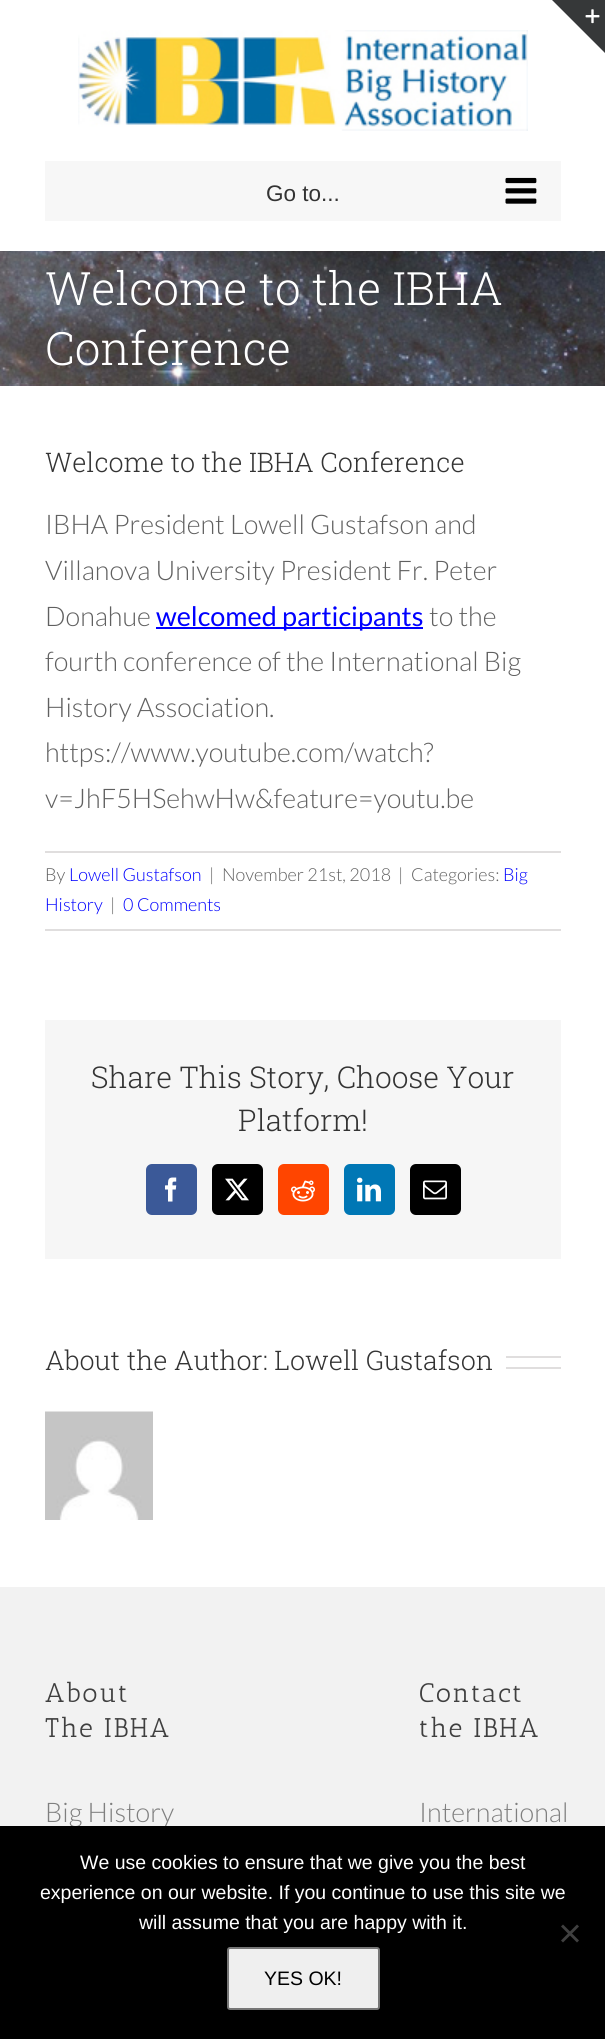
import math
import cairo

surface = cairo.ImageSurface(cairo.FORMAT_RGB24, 605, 2039)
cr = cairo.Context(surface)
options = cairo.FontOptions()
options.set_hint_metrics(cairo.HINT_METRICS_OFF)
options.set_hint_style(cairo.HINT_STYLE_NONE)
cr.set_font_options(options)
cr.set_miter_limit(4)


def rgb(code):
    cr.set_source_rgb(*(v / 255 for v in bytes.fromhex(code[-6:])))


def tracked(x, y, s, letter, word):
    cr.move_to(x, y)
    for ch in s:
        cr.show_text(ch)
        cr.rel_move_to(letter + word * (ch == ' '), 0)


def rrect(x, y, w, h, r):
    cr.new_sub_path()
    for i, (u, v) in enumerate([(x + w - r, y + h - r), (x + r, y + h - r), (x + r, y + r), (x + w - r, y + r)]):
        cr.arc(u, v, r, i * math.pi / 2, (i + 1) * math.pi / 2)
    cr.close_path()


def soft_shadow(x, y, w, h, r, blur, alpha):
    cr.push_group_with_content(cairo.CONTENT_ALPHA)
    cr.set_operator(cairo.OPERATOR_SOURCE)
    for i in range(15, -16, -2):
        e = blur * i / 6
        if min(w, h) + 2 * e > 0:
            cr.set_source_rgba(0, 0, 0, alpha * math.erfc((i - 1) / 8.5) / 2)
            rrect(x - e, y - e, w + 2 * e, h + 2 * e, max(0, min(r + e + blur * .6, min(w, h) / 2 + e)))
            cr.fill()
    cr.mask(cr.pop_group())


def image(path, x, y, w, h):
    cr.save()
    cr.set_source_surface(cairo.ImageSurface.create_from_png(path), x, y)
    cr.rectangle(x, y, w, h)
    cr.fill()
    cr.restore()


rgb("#ffffff")
cr.paint()
image("img/4.png", 0, 251, 605, 135)
rgb("#000000")
soft_shadow(3, 18, 600, 245, 0, 37.5, 0.14)
rgb("#ffffff")
cr.rectangle(0, 0, 605, 251)
cr.fill()
rgb("#363839")
cr.new_path()
cr.move_to(552, 0)
cr.line_to(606, 0)
cr.line_to(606, 54)
cr.close_path()
cr.fill()
image("img/1.png", 585, 9, 15, 15)
image("img/2.png", 78, 30, 450, 101)
rgb("#f7f7f7")
cr.rectangle(45, 161, 516, 60)
cr.fill()
image("img/3.png", 505, 177, 32, 27)
for x, y, w, h, color in [
    (156, 627, 267, 2, "#0000ff"),
    (45, 851, 516, 2, "#e0dede"),
    (45, 929, 516, 2, "#e0dede"),
    (45, 1020, 516, 239, "#f6f6f6"),
]:
    rgb(color)
    cr.rectangle(x, y, w, h)
    cr.fill()
rgb("#3b5998")
rrect(147, 1165, 49, 49, 5)
cr.fill_preserve()
cr.stroke()
image("img/5.png", 165, 1177, 12, 25)
rgb("#000000")
rrect(213, 1165, 49, 49, 5)
cr.fill_preserve()
cr.stroke()
image("img/6.png", 225, 1178, 24, 23)
rgb("#ff4500")
rrect(279, 1165, 49, 49, 5)
cr.fill_preserve()
cr.stroke()
image("img/7.png", 291, 1180, 24, 22)
rgb("#0077b5")
rrect(345, 1165, 49, 49, 5)
cr.fill_preserve()
cr.stroke()
image("img/8.png", 357, 1177, 24, 25)
rgb("#000000")
rrect(411, 1165, 49, 49, 5)
cr.fill_preserve()
cr.stroke()
image("img/9.png", 423, 1180, 24, 20)
rgb("#e0dede")
cr.rectangle(506, 1356, 55, 2)
cr.fill()
cr.rectangle(506, 1367, 55, 2)
cr.fill()
image("img/10.png", 45, 1411, 108, 109)
rgb("#f2f2f2")
cr.rectangle(0, 1587, 605, 239)
cr.fill()
cr.select_font_face("Liberation Sans")
cr.set_font_size(22.5)
rgb("#333333")
cr.move_to(266, 201)
cr.show_text("Go to...")
cr.select_font_face("Roboto Slab Light")
cr.set_font_size(46)
rgb("#ffffff")
cr.move_to(45, 305)
cr.show_text("Welcome to the IBHA")
cr.move_to(45, 365)
cr.show_text("Conference")
cr.set_font_size(27)
rgb("#333333")
cr.move_to(45, 472)
cr.show_text("Welcome to the IBHA Conference")
cr.select_font_face("Lato Light")
rgb("#606060")
for x, y, s in [
    (45, 534, "IBHA President Lowell Gustafson and"),
    (45, 580, "Villanova University President Fr. Peter"),
    (45, 626, "Donahue"),
]:
    cr.move_to(x, y)
    cr.show_text(s)
cr.select_font_face("Lato")
rgb("#0000ff")
cr.move_to(156, 626)
cr.show_text("welcomed participants")
cr.select_font_face("Lato Light")
rgb("#606060")
for x, y, s in [
    (429, 626, "to the"),
    (45, 671, "fourth conference of the International Big"),
    (45, 717, "History Association."),
    (45, 762, "https://www.youtube.com/watch?"),
    (45, 808, "v=JhF5HSehwHw&feature=youtu.be"),
]:
    cr.move_to(x, y)
    cr.show_text(s)
cr.set_font_size(18)
cr.move_to(45, 881)
cr.show_text("By")
rgb("#0000ff")
cr.move_to(69, 881)
cr.show_text("Lowell Gustafson")
rgb("#606060")
for x, y, s in [
    (209, 881, "|"),
    (222, 881, "November 21st, 2018"),
    (398, 881, "|"),
    (411, 881, "Categories:"),
]:
    cr.move_to(x, y)
    cr.show_text(s)
rgb("#0000ff")
cr.move_to(503, 881)
cr.show_text("Big")
cr.move_to(45, 911)
cr.show_text("History")
rgb("#606060")
cr.move_to(110, 911)
cr.show_text("|")
rgb("#0000ff")
cr.move_to(123, 911)
cr.show_text("0 Comments")
cr.select_font_face("Roboto Slab Light")
cr.set_font_size(30)
rgb("#333333")
cr.move_to(91, 1088)
cr.show_text("Share This Story, Choose Your")
cr.move_to(238, 1131)
cr.show_text("Platform!")
cr.set_font_size(27)
cr.move_to(45, 1370)
cr.show_text("About the Author: Lowell Gustafson")
cr.select_font_face("Antic Slab")
rgb("#3f3f3f")
tracked(45, 1702, "About", 1.5, 0)
tracked(45, 1737, "The IBHA", 1.5, 0)
cr.select_font_face("Lato Light")
rgb("#7f7f7f")
cr.move_to(45, 1822)
cr.show_text("Big History")
cr.select_font_face("Antic Slab")
rgb("#3f3f3f")
tracked(419, 1702, "Contact", 1.5, 0)
tracked(419, 1737, "the IBHA", 1.5, 0)
cr.select_font_face("Lato Light")
rgb("#7f7f7f")
cr.move_to(419, 1822)
cr.show_text("International")
rgb("#000000")
cr.rectangle(0, 1826, 605, 213)
cr.fill()
cr.select_font_face("Liberation Sans")
cr.set_font_size(19.5)
rgb("#ffffff")
for x, y, s in [
    (80, 1869, "We use cookies to ensure that we give you the best"),
    (40, 1899, "experience on our website. If you continue to use this site we"),
    (139, 1929, "will assume that you are happy with it."),
]:
    cr.move_to(x, y)
    cr.show_text(s)
rgb("#404040")
cr.new_path()
cr.move_to(577, 1924.5)
cr.line_to(579, 1926.5)
cr.line_to(563, 1942.5)
cr.line_to(561, 1940.5)
cr.close_path()
cr.fill()
cr.new_path()
cr.move_to(561, 1926.5)
cr.line_to(563, 1924.5)
cr.line_to(579, 1940.5)
cr.line_to(577, 1942.5)
cr.close_path()
cr.fill()
rgb("#efefef")
rrect(228, 1948, 151, 61, 2)
cr.fill_preserve()
rgb("#767676")
cr.stroke()
rgb("#000000")
cr.move_to(264, 1985)
cr.show_text("YES OK!")
surface.write_to_png("page.png")
